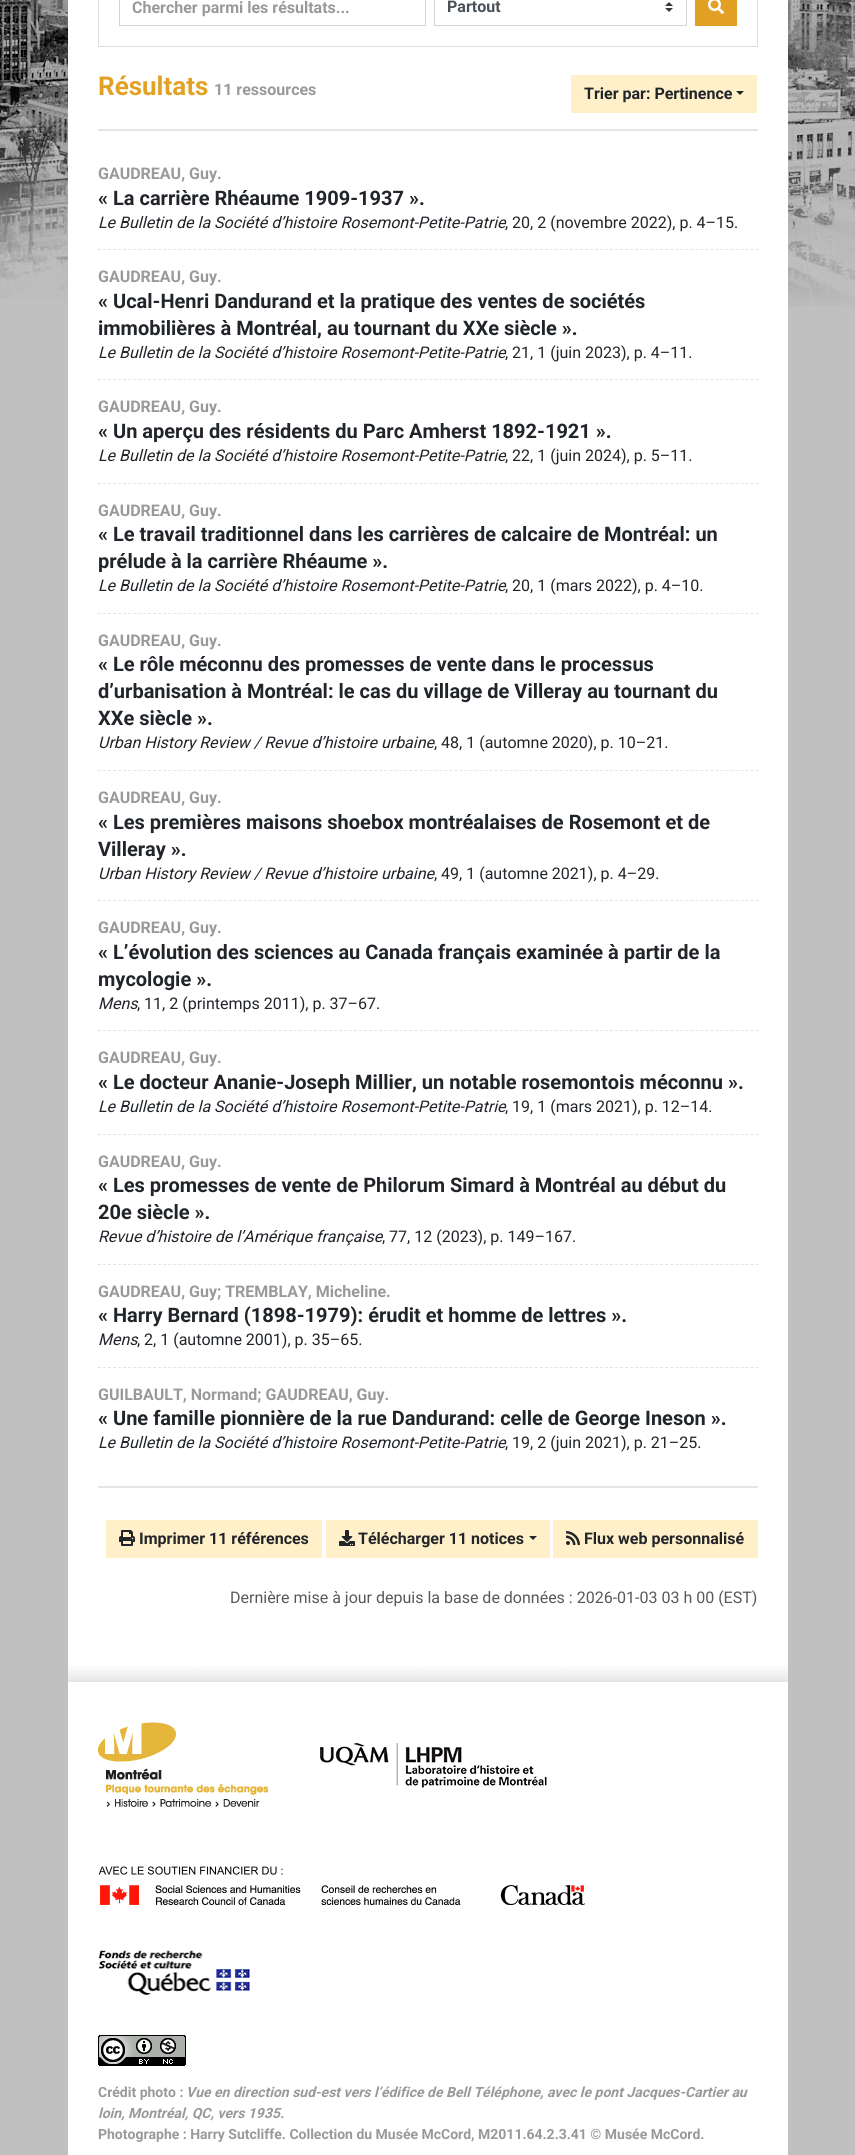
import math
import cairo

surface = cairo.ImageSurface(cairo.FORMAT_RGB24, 855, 2155)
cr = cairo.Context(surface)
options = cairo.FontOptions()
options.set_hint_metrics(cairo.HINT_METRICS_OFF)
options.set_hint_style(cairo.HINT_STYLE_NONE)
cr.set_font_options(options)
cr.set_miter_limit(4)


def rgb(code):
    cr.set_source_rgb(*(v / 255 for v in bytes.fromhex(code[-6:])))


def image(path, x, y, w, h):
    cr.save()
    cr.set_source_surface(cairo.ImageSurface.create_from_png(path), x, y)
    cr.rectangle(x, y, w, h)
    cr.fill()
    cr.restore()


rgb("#c0c0c0")
cr.paint()
rgb("#ffffff")
cr.rectangle(68, 0, 720, 2155)
cr.fill()
image("img/1.png", 0, 0, 68, 299)
image("img/2.png", 68, 1666, 720, 16)
cr.rectangle(98.5, -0.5, 659, 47)
rgb("#dfdfdf")
cr.set_line_width(1)
cr.stroke()
cr.rectangle(119.5, -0.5, 306, 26)
rgb("#ced4da")
cr.stroke()
image("img/3.png", 665, 2, 8, 10)
cr.rectangle(434.5, -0.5, 252, 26)
cr.stroke()
rgb("#e2a124")
cr.rectangle(695, 0, 42, 26)
cr.fill()
image("img/4.png", 708, 0, 16, 14)
rgb("#fff0c9")
cr.rectangle(571, 75, 186, 38)
cr.fill()
rgb("#212529")
cr.new_path()
cr.move_to(736, 91)
cr.line_to(744, 91)
cr.line_to(740, 95)
cr.close_path()
cr.fill()
rgb("#e5e5e5")
cr.rectangle(98, 129, 660, 2)
cr.fill()
cr.rectangle(98, 1486, 660, 2)
cr.fill()
cr.new_path()
cr.move_to(98, 249.5)
cr.line_to(758, 249.5)
cr.set_dash([3, 2.02])
cr.stroke()
cr.new_path()
cr.move_to(98, 379.5)
cr.line_to(758, 379.5)
cr.stroke()
cr.new_path()
cr.move_to(98, 483.5)
cr.line_to(758, 483.5)
cr.stroke()
cr.new_path()
cr.move_to(98, 613.5)
cr.line_to(758, 613.5)
cr.stroke()
cr.new_path()
cr.move_to(98, 770.5)
cr.line_to(758, 770.5)
cr.stroke()
cr.new_path()
cr.move_to(98, 900.5)
cr.line_to(758, 900.5)
cr.stroke()
cr.new_path()
cr.move_to(98, 1030.5)
cr.line_to(758, 1030.5)
cr.stroke()
cr.new_path()
cr.move_to(98, 1134.5)
cr.line_to(758, 1134.5)
cr.stroke()
cr.new_path()
cr.move_to(98, 1264.5)
cr.line_to(758, 1264.5)
cr.stroke()
cr.new_path()
cr.move_to(98, 1367.5)
cr.line_to(758, 1367.5)
cr.stroke()
rgb("#fff0c9")
cr.rectangle(106, 1520, 216, 38)
cr.fill()
image("img/5.png", 119, 1530, 16, 16)
cr.rectangle(326, 1520, 224, 38)
cr.fill()
image("img/6.png", 339, 1530, 16, 16)
rgb("#212529")
cr.new_path()
cr.move_to(529, 1536)
cr.line_to(537, 1536)
cr.line_to(533, 1540)
cr.close_path()
cr.fill()
rgb("#fff0c9")
cr.rectangle(553, 1520, 205, 38)
cr.fill()
image("img/7.png", 566, 1531, 14, 14)
image("img/8.png", 788, 0, 67, 307)
image("img/9.png", 98, 1722, 171, 85)
image("img/10.png", 320, 1743, 227, 45)
image("img/11.png", 98, 1866, 487, 39)
image("img/12.png", 98, 1950, 152, 45)
image("img/13.png", 98, 2035, 88, 31)
cr.select_font_face("Roboto", cairo.FONT_SLANT_NORMAL, cairo.FONT_WEIGHT_BOLD)
cr.set_font_size(16)
rgb("#999999")
cr.move_to(132, 13)
cr.show_text("Chercher parmi les résultats...")
rgb("#495057")
cr.move_to(447, 12)
cr.show_text("Partout")
cr.set_font_size(26)
rgb("#e2a124")
cr.move_to(98, 95)
cr.show_text("Résultats")
cr.set_font_size(16)
rgb("#999999")
cr.move_to(214, 95)
cr.show_text("11 ressources")
rgb("#212529")
cr.move_to(584, 99)
cr.show_text("Trier par: Pertinence")
rgb("#999999")
cr.move_to(98, 179)
cr.show_text("GAUDREAU, Guy.")
cr.set_font_size(20)
rgb("#212529")
cr.move_to(98, 205)
cr.show_text("« La carrière Rhéaume 1909-1937 ».")
cr.select_font_face("Roboto", cairo.FONT_SLANT_ITALIC)
cr.set_font_size(16)
cr.move_to(98, 228)
cr.show_text("Le Bulletin de la Société d’histoire Rosemont-Petite-Patrie")
cr.select_font_face("Roboto")
cr.move_to(505, 228)
cr.show_text(", 20, 2 (novembre 2022), p. 4–15.")
cr.select_font_face("Roboto", cairo.FONT_SLANT_NORMAL, cairo.FONT_WEIGHT_BOLD)
rgb("#999999")
cr.move_to(98, 282)
cr.show_text("GAUDREAU, Guy.")
cr.set_font_size(20)
rgb("#212529")
cr.move_to(98, 308)
cr.show_text("« Ucal-Henri Dandurand et la pratique des ventes de sociétés")
cr.move_to(98, 335)
cr.show_text("immobilières à Montréal, au tournant du XXe siècle ».")
cr.select_font_face("Roboto", cairo.FONT_SLANT_ITALIC)
cr.set_font_size(16)
cr.move_to(98, 358)
cr.show_text("Le Bulletin de la Société d’histoire Rosemont-Petite-Patrie")
cr.select_font_face("Roboto")
cr.move_to(505, 358)
cr.show_text(", 21, 1 (juin 2023), p. 4–11.")
cr.select_font_face("Roboto", cairo.FONT_SLANT_NORMAL, cairo.FONT_WEIGHT_BOLD)
rgb("#999999")
cr.move_to(98, 412)
cr.show_text("GAUDREAU, Guy.")
cr.set_font_size(20)
rgb("#212529")
cr.move_to(98, 438)
cr.show_text("« Un aperçu des résidents du Parc Amherst 1892-1921 ».")
cr.select_font_face("Roboto", cairo.FONT_SLANT_ITALIC)
cr.set_font_size(16)
cr.move_to(98, 461)
cr.show_text("Le Bulletin de la Société d’histoire Rosemont-Petite-Patrie")
cr.select_font_face("Roboto")
cr.move_to(505, 461)
cr.show_text(", 22, 1 (juin 2024), p. 5–11.")
cr.select_font_face("Roboto", cairo.FONT_SLANT_NORMAL, cairo.FONT_WEIGHT_BOLD)
rgb("#999999")
cr.move_to(98, 516)
cr.show_text("GAUDREAU, Guy.")
cr.set_font_size(20)
rgb("#212529")
cr.move_to(98, 541)
cr.show_text("« Le travail traditionnel dans les carrières de calcaire de Montréal: un")
cr.move_to(98, 568)
cr.show_text("prélude à la carrière Rhéaume ».")
cr.select_font_face("Roboto", cairo.FONT_SLANT_ITALIC)
cr.set_font_size(16)
cr.move_to(98, 591)
cr.show_text("Le Bulletin de la Société d’histoire Rosemont-Petite-Patrie")
cr.select_font_face("Roboto")
cr.move_to(505, 591)
cr.show_text(", 20, 1 (mars 2022), p. 4–10.")
cr.select_font_face("Roboto", cairo.FONT_SLANT_NORMAL, cairo.FONT_WEIGHT_BOLD)
rgb("#999999")
cr.move_to(98, 646)
cr.show_text("GAUDREAU, Guy.")
cr.set_font_size(20)
rgb("#212529")
for x, y, s in [
    (98, 671, "« Le rôle méconnu des promesses de vente dans le processus"),
    (98, 698, "d’urbanisation à Montréal: le cas du village de Villeray au tournant du"),
    (98, 725, "XXe siècle »."),
]:
    cr.move_to(x, y)
    cr.show_text(s)
cr.select_font_face("Roboto", cairo.FONT_SLANT_ITALIC)
cr.set_font_size(16)
cr.move_to(98, 748)
cr.show_text("Urban History Review / Revue d’histoire urbaine")
cr.select_font_face("Roboto")
cr.move_to(434, 748)
cr.show_text(", 48, 1 (automne 2020), p. 10–21.")
cr.select_font_face("Roboto", cairo.FONT_SLANT_NORMAL, cairo.FONT_WEIGHT_BOLD)
rgb("#999999")
cr.move_to(98, 803)
cr.show_text("GAUDREAU, Guy.")
cr.set_font_size(20)
rgb("#212529")
cr.move_to(98, 829)
cr.show_text("« Les premières maisons shoebox montréalaises de Rosemont et de")
cr.move_to(98, 856)
cr.show_text("Villeray ».")
cr.select_font_face("Roboto", cairo.FONT_SLANT_ITALIC)
cr.set_font_size(16)
cr.move_to(98, 879)
cr.show_text("Urban History Review / Revue d’histoire urbaine")
cr.select_font_face("Roboto")
cr.move_to(434, 879)
cr.show_text(", 49, 1 (automne 2021), p. 4–29.")
cr.select_font_face("Roboto", cairo.FONT_SLANT_NORMAL, cairo.FONT_WEIGHT_BOLD)
rgb("#999999")
cr.move_to(98, 933)
cr.show_text("GAUDREAU, Guy.")
cr.set_font_size(20)
rgb("#212529")
cr.move_to(98, 959)
cr.show_text("« L’évolution des sciences au Canada français examinée à partir de la")
cr.move_to(98, 986)
cr.show_text("mycologie ».")
cr.select_font_face("Roboto", cairo.FONT_SLANT_ITALIC)
cr.set_font_size(16)
cr.move_to(98, 1009)
cr.show_text("Mens")
cr.select_font_face("Roboto")
cr.move_to(137, 1009)
cr.show_text(", 11, 2 (printemps 2011), p. 37–67.")
cr.select_font_face("Roboto", cairo.FONT_SLANT_NORMAL, cairo.FONT_WEIGHT_BOLD)
rgb("#999999")
cr.move_to(98, 1063)
cr.show_text("GAUDREAU, Guy.")
cr.set_font_size(20)
rgb("#212529")
cr.move_to(98, 1089)
cr.show_text("« Le docteur Ananie-Joseph Millier, un notable rosemontois méconnu ».")
cr.select_font_face("Roboto", cairo.FONT_SLANT_ITALIC)
cr.set_font_size(16)
cr.move_to(98, 1112)
cr.show_text("Le Bulletin de la Société d’histoire Rosemont-Petite-Patrie")
cr.select_font_face("Roboto")
cr.move_to(505, 1112)
cr.show_text(", 19, 1 (mars 2021), p. 12–14.")
cr.select_font_face("Roboto", cairo.FONT_SLANT_NORMAL, cairo.FONT_WEIGHT_BOLD)
rgb("#999999")
cr.move_to(98, 1167)
cr.show_text("GAUDREAU, Guy.")
cr.set_font_size(20)
rgb("#212529")
cr.move_to(98, 1192)
cr.show_text("« Les promesses de vente de Philorum Simard à Montréal au début du")
cr.move_to(98, 1219)
cr.show_text("20e siècle ».")
cr.select_font_face("Roboto", cairo.FONT_SLANT_ITALIC)
cr.set_font_size(16)
cr.move_to(98, 1242)
cr.show_text("Revue d’histoire de l’Amérique française")
cr.select_font_face("Roboto")
cr.move_to(382, 1242)
cr.show_text(", 77, 12 (2023), p. 149–167.")
cr.select_font_face("Roboto", cairo.FONT_SLANT_NORMAL, cairo.FONT_WEIGHT_BOLD)
rgb("#999999")
cr.move_to(98, 1297)
cr.show_text("GAUDREAU, Guy; TREMBLAY, Micheline.")
cr.set_font_size(20)
rgb("#212529")
cr.move_to(98, 1322)
cr.show_text("« Harry Bernard (1898-1979): érudit et homme de lettres ».")
cr.select_font_face("Roboto", cairo.FONT_SLANT_ITALIC)
cr.set_font_size(16)
cr.move_to(98, 1345)
cr.show_text("Mens")
cr.select_font_face("Roboto")
cr.move_to(137, 1345)
cr.show_text(", 2, 1 (automne 2001), p. 35–65.")
cr.select_font_face("Roboto", cairo.FONT_SLANT_NORMAL, cairo.FONT_WEIGHT_BOLD)
rgb("#999999")
cr.move_to(98, 1400)
cr.show_text("GUILBAULT, Normand; GAUDREAU, Guy.")
cr.set_font_size(20)
rgb("#212529")
cr.move_to(98, 1425)
cr.show_text("« Une famille pionnière de la rue Dandurand: celle de George Ineson ».")
cr.select_font_face("Roboto", cairo.FONT_SLANT_ITALIC)
cr.set_font_size(16)
cr.move_to(98, 1448)
cr.show_text("Le Bulletin de la Société d’histoire Rosemont-Petite-Patrie")
cr.select_font_face("Roboto")
cr.move_to(505, 1448)
cr.show_text(", 19, 2 (juin 2021), p. 21–25.")
cr.select_font_face("Roboto", cairo.FONT_SLANT_NORMAL, cairo.FONT_WEIGHT_BOLD)
for x, y, s in [
    (139, 1544, "Imprimer 11 références"),
    (358, 1544, "Télécharger 11 notices"),
    (584, 1544, "Flux web personnalisé"),
]:
    cr.move_to(x, y)
    cr.show_text(s)
cr.select_font_face("Roboto")
rgb("#585858")
cr.move_to(230, 1603)
cr.show_text("Dernière mise à jour depuis la base de données : 2026-01-03 03 h 00 (EST)")
cr.select_font_face("Roboto", cairo.FONT_SLANT_NORMAL, cairo.FONT_WEIGHT_BOLD)
cr.set_font_size(14)
rgb("#999999")
cr.move_to(98, 2097)
cr.show_text("Crédit photo :")
cr.select_font_face("Roboto", cairo.FONT_SLANT_ITALIC, cairo.FONT_WEIGHT_BOLD)
cr.move_to(186, 2097)
cr.show_text("Vue en direction sud-est vers l’édifice de Bell Téléphone, avec le pont Jacques-Cartier au")
cr.move_to(98, 2118)
cr.show_text("loin, Montréal, QC, vers 1935.")
cr.select_font_face("Roboto", cairo.FONT_SLANT_NORMAL, cairo.FONT_WEIGHT_BOLD)
cr.move_to(98, 2139)
cr.show_text("Photographe : Harry Sutcliffe. Collection du Musée McCord, M2011.64.2.3.41 © Musée McCord.")
surface.write_to_png("page.png")
